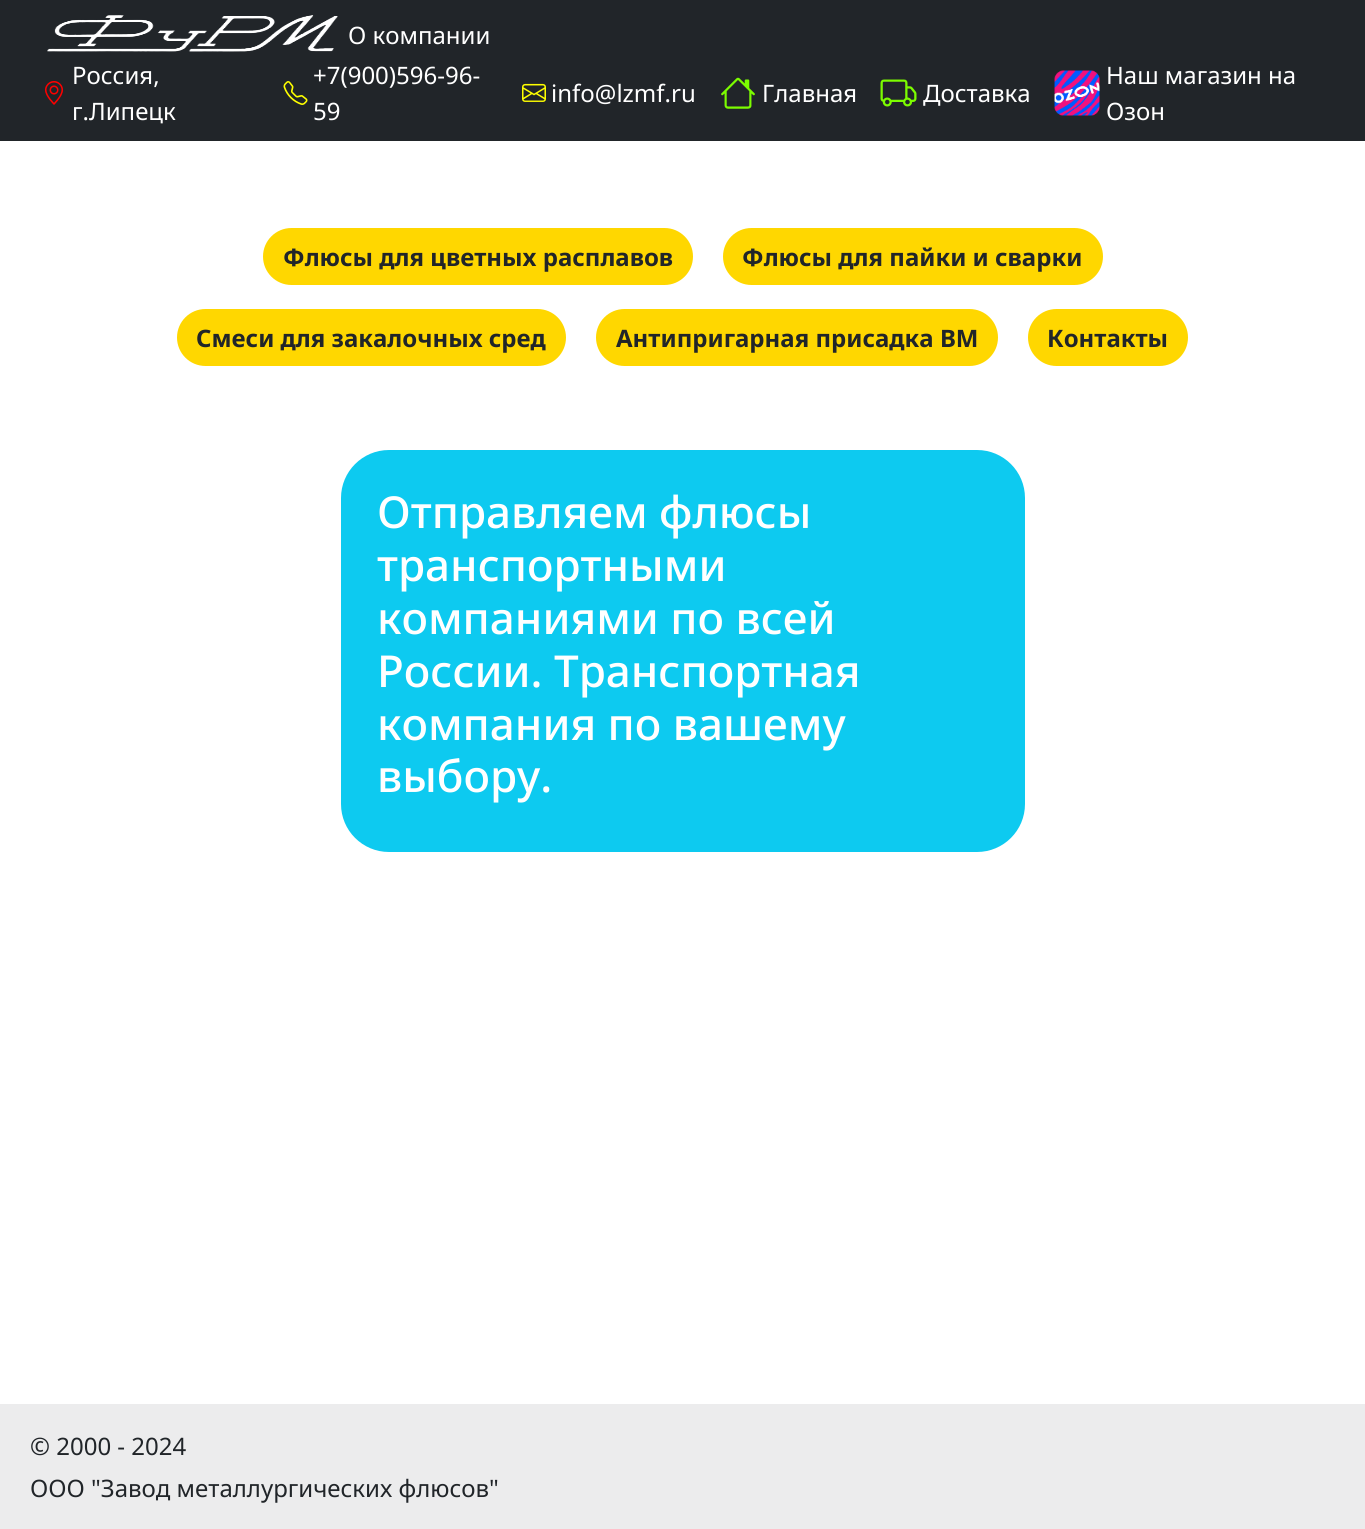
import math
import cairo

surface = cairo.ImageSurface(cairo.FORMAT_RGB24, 1365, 1529)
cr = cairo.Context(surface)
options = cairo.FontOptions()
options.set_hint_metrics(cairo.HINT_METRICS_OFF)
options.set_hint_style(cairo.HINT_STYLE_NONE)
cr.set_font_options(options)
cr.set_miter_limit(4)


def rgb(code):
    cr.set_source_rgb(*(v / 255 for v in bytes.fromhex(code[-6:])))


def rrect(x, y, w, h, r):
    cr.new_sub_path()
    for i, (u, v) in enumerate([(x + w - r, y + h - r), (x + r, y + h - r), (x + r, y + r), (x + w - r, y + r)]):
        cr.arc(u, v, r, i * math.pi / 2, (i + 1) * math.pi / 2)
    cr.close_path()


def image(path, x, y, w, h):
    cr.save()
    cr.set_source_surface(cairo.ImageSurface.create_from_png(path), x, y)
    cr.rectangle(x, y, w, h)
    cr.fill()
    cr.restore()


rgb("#ffffff")
cr.paint()
rgb("#212529")
cr.rectangle(0, 0, 1365, 141)
cr.fill()
image("img/1.png", 47, 15, 291, 37)
image("img/2.png", 45, 81, 18, 24)
image("img/3.png", 283, 81, 25, 24)
image("img/4.png", 522, 83, 24, 19)
image("img/5.png", 721, 77, 34, 32)
image("img/6.png", 880, 79, 37, 28)
image("img/7.png", 1054, 70, 46, 46)
rgb("#ffd700")
rrect(263, 228, 430, 57, 28.5)
cr.fill()
rrect(723, 228, 380, 57, 28.5)
cr.fill()
rrect(177, 309, 389, 57, 28.5)
cr.fill()
rrect(596, 309, 402, 57, 28.5)
cr.fill()
rrect(1028, 309, 160, 57, 28.5)
cr.fill()
rgb("#0dcaf0")
rrect(341, 450, 684, 402, 48)
cr.fill()
rgb("#ececed")
cr.rectangle(0, 1404, 1365, 125)
cr.fill()
cr.select_font_face("Noto Sans")
cr.set_font_size(24)
rgb("#ffffff")
for x, y, s in [
    (348, 44, "О компании"),
    (72, 84, "Россия,"),
    (72, 120, "г.Липецк"),
    (313, 84, "+7(900)596-96-"),
    (313, 120, "59"),
    (551, 102, "info@lzmf.ru"),
    (762, 102, "Главная"),
    (923, 102, "Доставка"),
    (1106, 84, "Наш магазин на"),
    (1106, 120, "Озон"),
]:
    cr.move_to(x, y)
    cr.show_text(s)
cr.select_font_face("Noto Sans", cairo.FONT_SLANT_NORMAL, cairo.FONT_WEIGHT_BOLD)
rgb("#212529")
for x, y, s in [
    (283, 266, "Флюсы для цветных расплавов"),
    (742, 266, "Флюсы для пайки и сварки"),
    (196, 347, "Смеси для закалочных сред"),
    (616, 347, "Антипригарная присадка ВМ"),
    (1047, 347, "Контакты"),
]:
    cr.move_to(x, y)
    cr.show_text(s)
cr.select_font_face("Noto Sans Medium")
cr.set_font_size(44)
rgb("#ffffff")
for x, y, s in [
    (377, 528, "Отправляем флюсы"),
    (377, 581, "транспортными"),
    (377, 634, "компаниями по всей"),
    (377, 687, "России. Транспортная"),
    (377, 740, "компания по вашему"),
    (377, 792, "выбору."),
]:
    cr.move_to(x, y)
    cr.show_text(s)
cr.select_font_face("Noto Sans")
cr.set_font_size(24)
rgb("#212529")
cr.move_to(30, 1455)
cr.show_text("© 2000 - 2024")
cr.move_to(30, 1497)
cr.show_text("ООО \"Завод металлургических флюсов\"")
surface.write_to_png("page.png")
